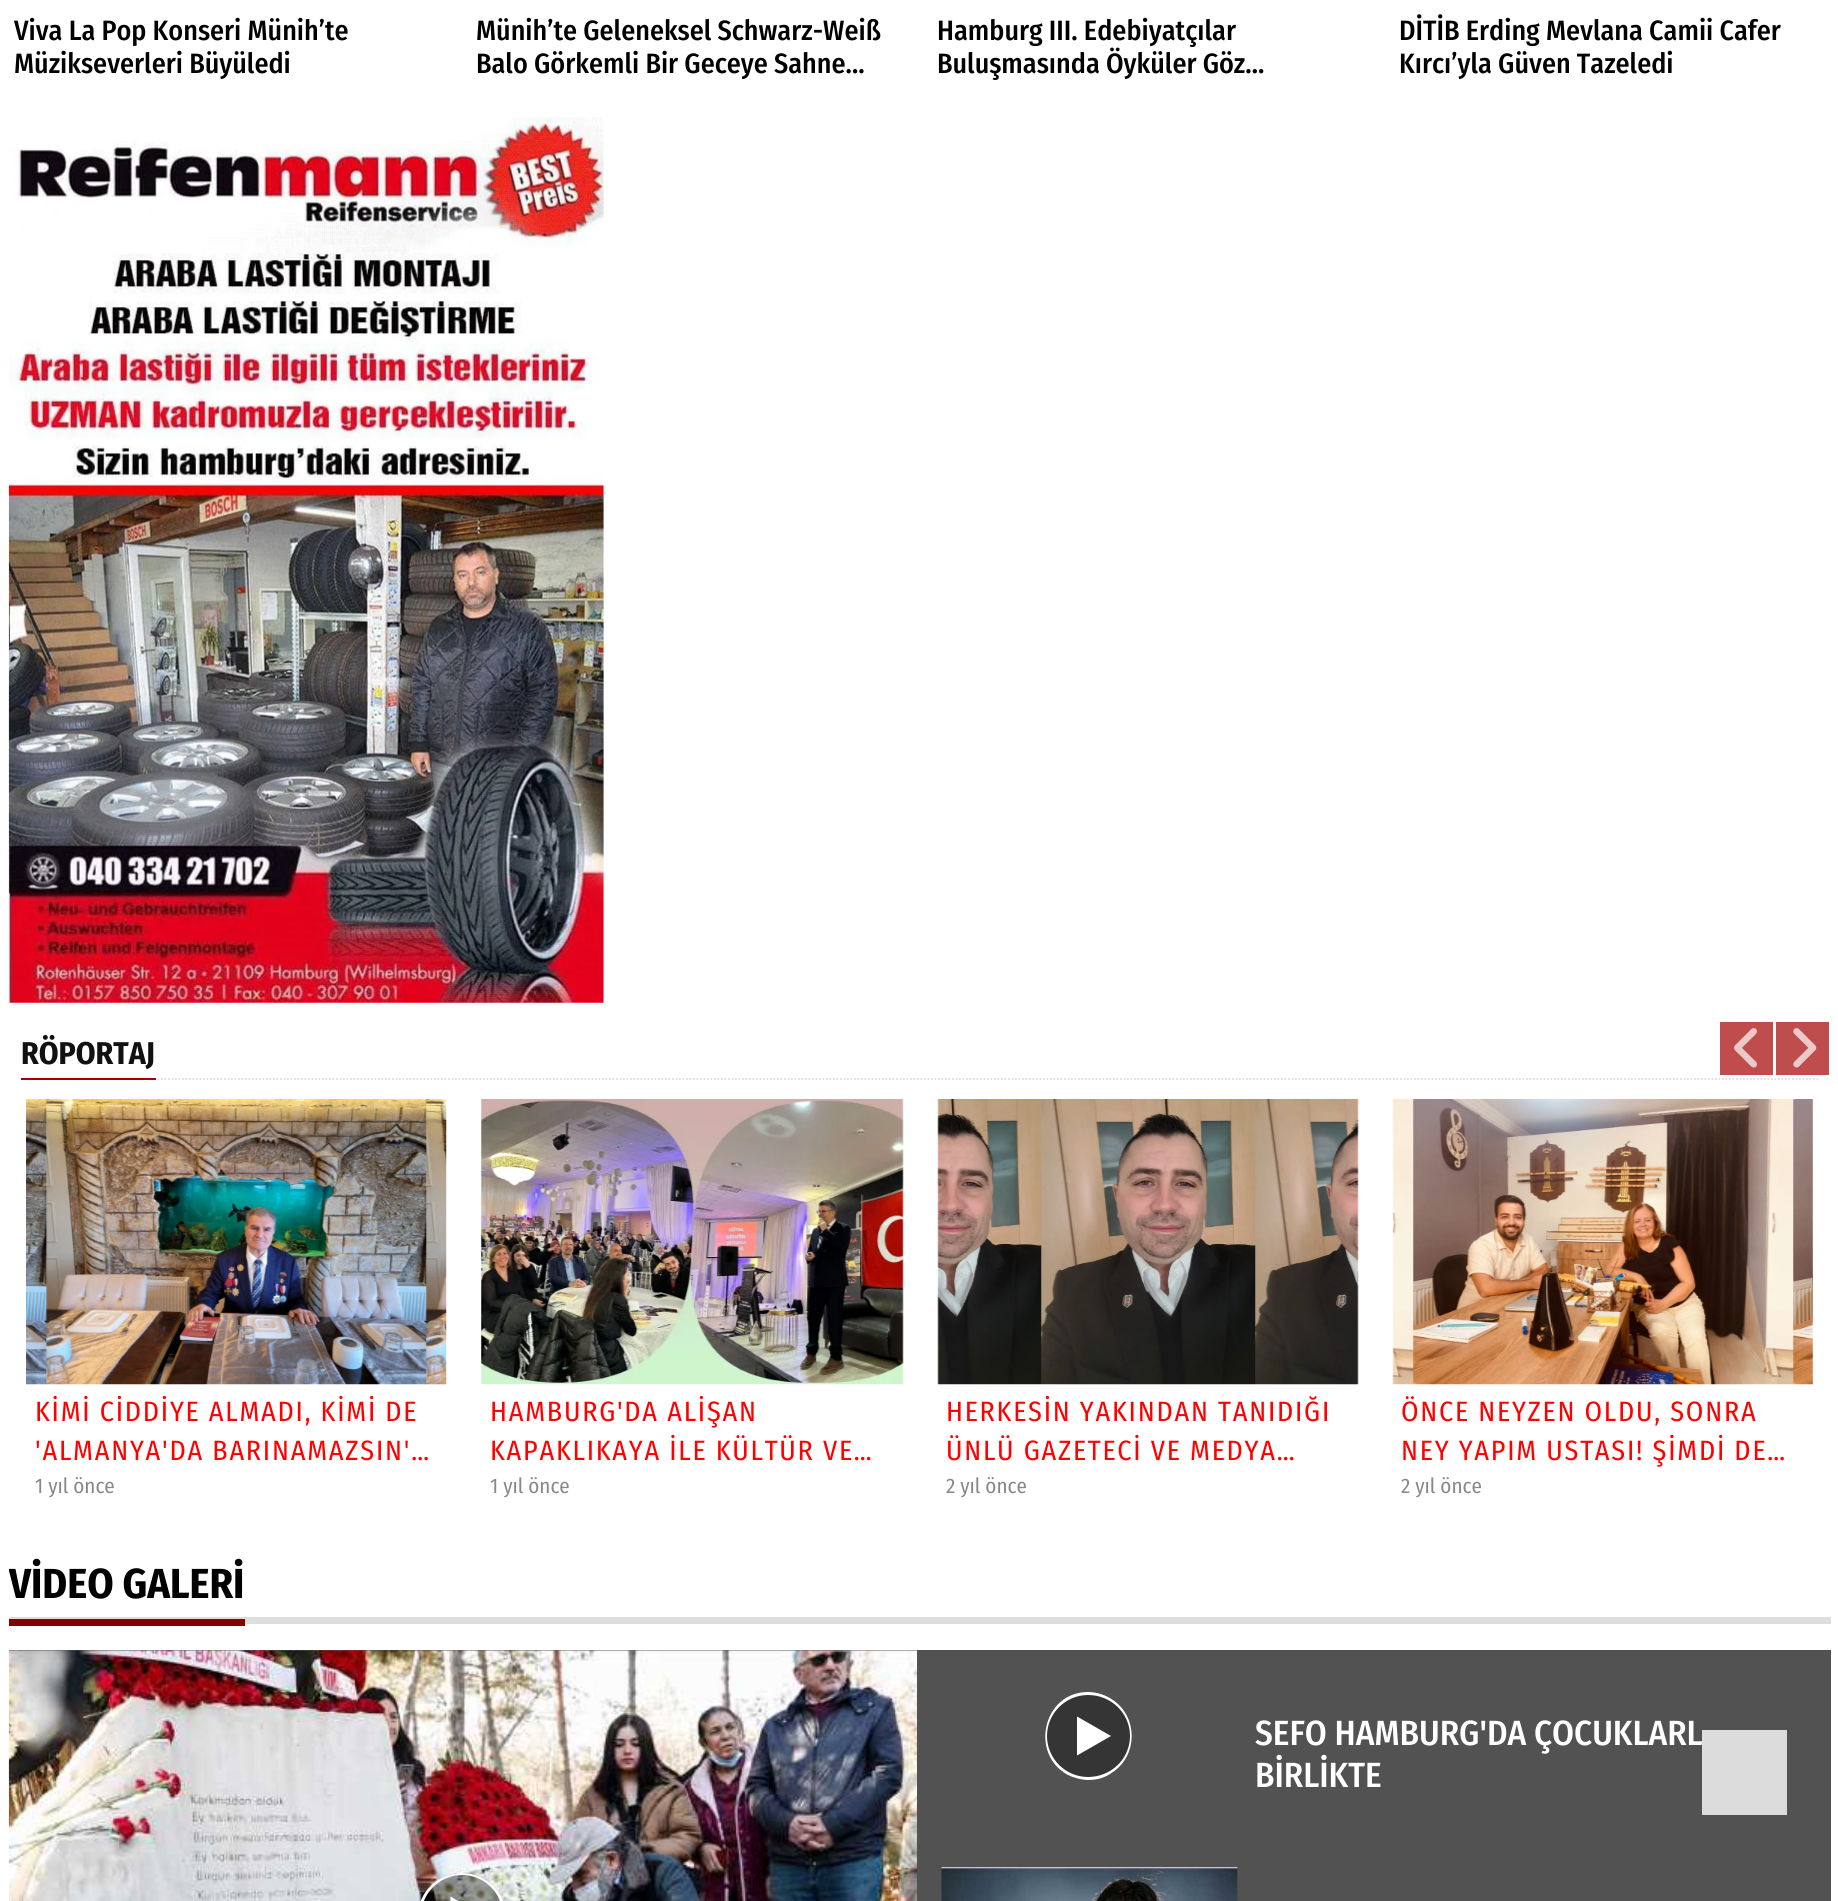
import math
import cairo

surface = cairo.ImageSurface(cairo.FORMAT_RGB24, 1838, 1901)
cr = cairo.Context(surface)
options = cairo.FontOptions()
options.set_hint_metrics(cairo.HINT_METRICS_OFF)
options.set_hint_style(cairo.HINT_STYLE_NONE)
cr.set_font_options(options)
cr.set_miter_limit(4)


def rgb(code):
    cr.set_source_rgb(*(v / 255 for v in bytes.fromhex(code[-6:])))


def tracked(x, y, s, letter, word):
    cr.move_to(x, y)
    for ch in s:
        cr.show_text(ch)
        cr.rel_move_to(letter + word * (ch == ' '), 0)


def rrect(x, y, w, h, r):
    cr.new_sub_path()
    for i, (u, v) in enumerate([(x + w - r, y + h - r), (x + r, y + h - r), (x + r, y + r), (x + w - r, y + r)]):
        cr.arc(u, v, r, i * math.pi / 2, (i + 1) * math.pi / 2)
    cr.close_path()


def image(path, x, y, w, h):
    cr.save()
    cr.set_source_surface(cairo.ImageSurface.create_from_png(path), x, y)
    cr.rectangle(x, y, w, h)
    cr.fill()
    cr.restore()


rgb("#ffffff")
cr.paint()
image("img/1.png", 8, 117, 596, 886)
rgb("#c04d4d")
cr.rectangle(1720, 1022, 53, 53)
cr.fill()
image("img/2.png", 1734, 1028, 23, 40)
cr.rectangle(1776, 1022, 53, 53)
cr.fill()
image("img/3.png", 1793, 1028, 24, 40)
cr.new_path()
cr.move_to(21, 1079)
cr.line_to(1818, 1079)
rgb("#dddddd")
cr.set_line_width(1.8)
cr.set_dash([1.75, 1.75])
cr.stroke()
rgb("#a50101")
cr.rectangle(21, 1078, 135, 2)
cr.fill()
image("img/4.png", 26, 1099, 421, 286)
image("img/5.png", 481, 1099, 423, 286)
image("img/6.png", 937, 1099, 422, 286)
image("img/7.png", 1392, 1099, 421, 286)
for x, y, w, h, color in [
    (9, 1617, 1822, 7, "#dddddd"),
    (9, 1619, 236, 7, "#840000"),
    (9, 1650, 1822, 251, "#525252"),
]:
    rgb(color)
    cr.rectangle(x, y, w, h)
    cr.fill()
image("img/8.png", 8, 1650, 909, 251)
cr.set_source_rgba(0, 0, 0, 0.35)
rrect(418, 1873, 88, 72, 43.5)
cr.fill()
rgb("#ffffff")
cr.set_fill_rule(cairo.FILL_RULE_EVEN_ODD)
cr.new_path()
cr.move_to(462, 1873)
cr.curve_to(438, 1873, 418, 1892, 418, 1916)
cr.curve_to(418, 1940, 438, 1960, 462, 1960)
cr.curve_to(486, 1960, 506, 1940, 506, 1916)
cr.curve_to(506, 1892, 486, 1873, 462, 1873)
cr.close_path()
cr.move_to(462, 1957)
cr.curve_to(485, 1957, 503, 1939, 503, 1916)
cr.curve_to(503, 1894, 485, 1875, 462, 1875)
cr.curve_to(439, 1875, 421, 1894, 421, 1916)
cr.curve_to(421, 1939, 439, 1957, 462, 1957)
cr.close_path()
cr.fill()
cr.set_fill_rule(cairo.FILL_RULE_WINDING)
cr.new_path()
cr.move_to(450.5, 1896.5)
cr.line_to(450.5, 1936)
cr.line_to(484.5, 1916.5)
cr.close_path()
cr.fill()
rgb("#353535")
rrect(1045, 1692, 87, 88, 43.5)
cr.fill()
rgb("#ffffff")
cr.set_fill_rule(cairo.FILL_RULE_EVEN_ODD)
cr.new_path()
cr.move_to(1088, 1692)
cr.curve_to(1043, 1692, 1029, 1754, 1068, 1775)
cr.curve_to(1074, 1778, 1082, 1780, 1088, 1780)
cr.curve_to(1097, 1780, 1105, 1778, 1113, 1772)
cr.curve_to(1138, 1755, 1138, 1717, 1113, 1700)
cr.curve_to(1106, 1695, 1097, 1692, 1088, 1692)
cr.close_path()
cr.move_to(1088, 1777)
cr.curve_to(1111, 1777, 1130, 1759, 1130, 1736)
cr.curve_to(1130, 1713, 1111, 1695, 1088, 1695)
cr.curve_to(1066, 1695, 1047, 1713, 1047, 1736)
cr.curve_to(1047, 1759, 1066, 1777, 1088, 1777)
cr.close_path()
cr.fill()
cr.set_fill_rule(cairo.FILL_RULE_WINDING)
cr.new_path()
cr.move_to(1077, 1716.5)
cr.line_to(1077, 1755.5)
cr.line_to(1111, 1736)
cr.close_path()
cr.fill()
image("img/9.png", 941, 1867, 297, 34)
cr.select_font_face("Fira Sans Condensed Medium")
cr.set_font_size(28)
rgb("#000000")
for x, y, s in [
    (14, 40, "Viva La Pop Konseri Münih’te"),
    (14, 73, "Müzikseverleri Büyüledi"),
    (476, 40, "Münih’te Geleneksel Schwarz-Weiß"),
    (476, 73, "Balo Görkemli Bir Geceye Sahne…"),
    (937, 40, "Hamburg III. Edebiyatçılar"),
    (937, 73, "Buluşmasında Öyküler Göz…"),
    (1399, 40, "DİTİB Erding Mevlana Camii Cafer"),
    (1399, 73, "Kırcı’yla Güven Tazeledi"),
]:
    cr.move_to(x, y)
    cr.show_text(s)
cr.select_font_face("Fira Sans Condensed", cairo.FONT_SLANT_NORMAL, cairo.FONT_WEIGHT_BOLD)
cr.set_font_size(31.5)
rgb("#111111")
cr.move_to(21, 1064)
cr.show_text("RÖPORTAJ")
cr.select_font_face("Fira Sans Condensed")
cr.set_font_size(28)
rgb("#ff0000")
tracked(35, 1421, "KİMİ CİDDİYE ALMADI, KİMİ DE", 1.75, 0)
tracked(35, 1460, "'ALMANYA'DA BARINAMAZSIN'…", 1.75, 0)
cr.set_font_size(21)
rgb("#888888")
cr.move_to(35, 1493)
cr.show_text("1 yıl önce")
cr.set_font_size(28)
rgb("#ff0000")
tracked(490, 1421, "HAMBURG'DA ALİŞAN", 1.75, 0)
tracked(490, 1460, "KAPAKLIKAYA İLE KÜLTÜR VE…", 1.75, 0)
cr.set_font_size(21)
rgb("#888888")
cr.move_to(490, 1493)
cr.show_text("1 yıl önce")
cr.set_font_size(28)
rgb("#ff0000")
tracked(946, 1421, "HERKESİN YAKINDAN TANIDIĞI", 1.75, 0)
tracked(946, 1460, "ÜNLÜ GAZETECİ VE MEDYA…", 1.75, 0)
cr.set_font_size(21)
rgb("#888888")
cr.move_to(946, 1493)
cr.show_text("2 yıl önce")
cr.set_font_size(28)
rgb("#ff0000")
tracked(1401, 1421, "ÖNCE NEYZEN OLDU, SONRA", 1.75, 0)
tracked(1401, 1460, "NEY YAPIM USTASI! ŞİMDİ DE…", 1.75, 0)
cr.set_font_size(21)
rgb("#888888")
cr.move_to(1401, 1493)
cr.show_text("2 yıl önce")
cr.save()
cr.rectangle(9, 1542, 1822, 108)
cr.clip()
cr.select_font_face("Fira Sans Condensed", cairo.FONT_SLANT_NORMAL, cairo.FONT_WEIGHT_BOLD)
cr.set_font_size(42)
rgb("#000000")
cr.move_to(9, 1598)
cr.show_text("VİDEO GALERİ")
cr.restore()
cr.select_font_face("Fira Sans Condensed Medium")
cr.set_font_size(35)
rgb("#ffffff")
cr.move_to(1255, 1745)
cr.show_text("SEFO HAMBURG'DA ÇOCUKLARL")
cr.move_to(1255, 1787)
cr.show_text("BİRLİKTE")
cr.set_source_rgba(1, 1, 1, 0.8)
cr.rectangle(1702, 1730, 85, 85)
cr.fill()
surface.write_to_png("page.png")
